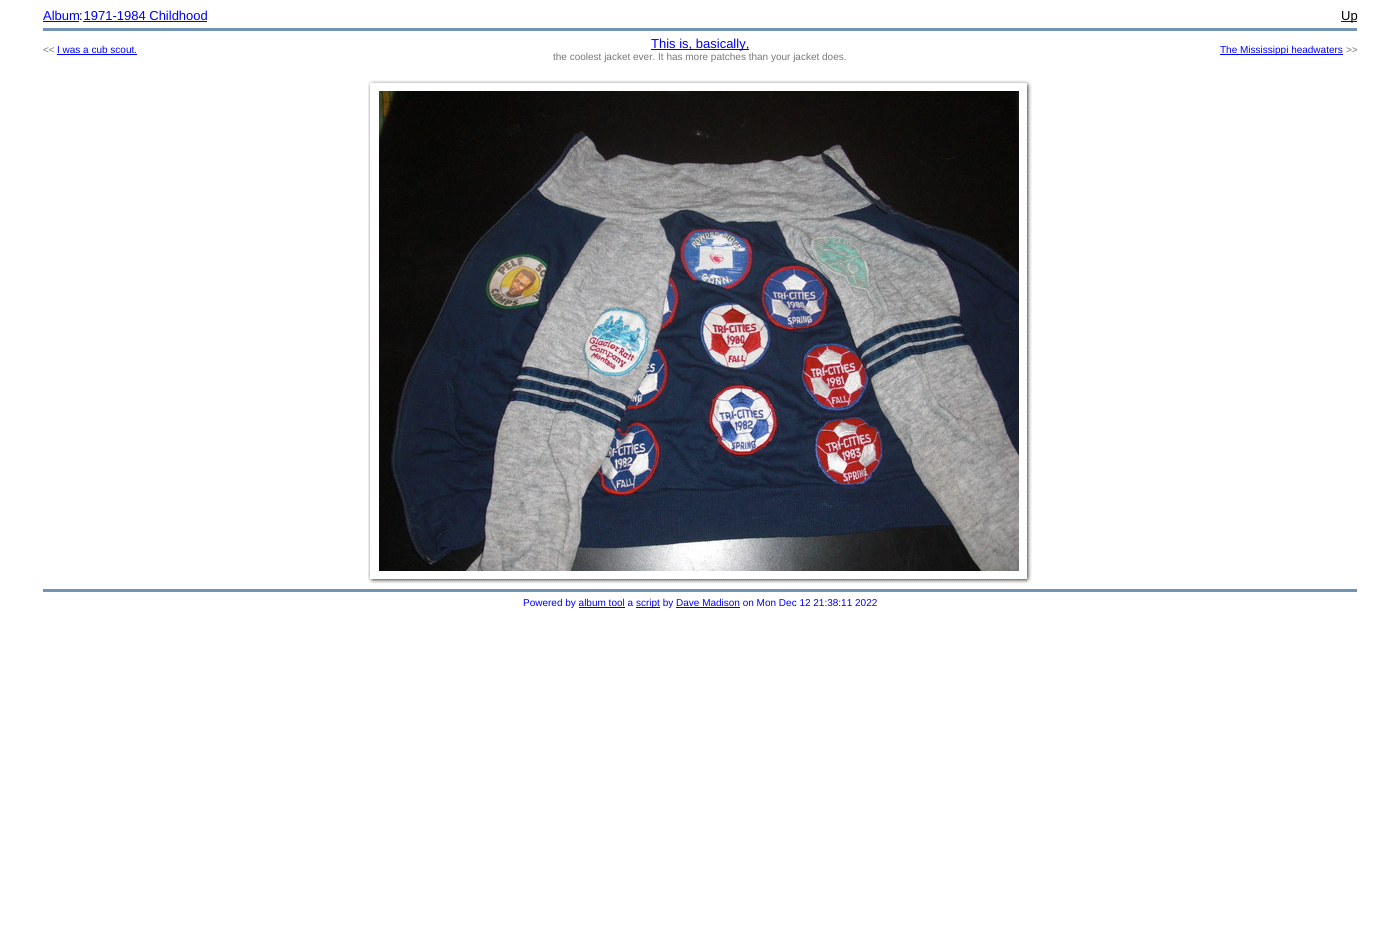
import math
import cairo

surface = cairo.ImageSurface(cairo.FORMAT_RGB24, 1400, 946)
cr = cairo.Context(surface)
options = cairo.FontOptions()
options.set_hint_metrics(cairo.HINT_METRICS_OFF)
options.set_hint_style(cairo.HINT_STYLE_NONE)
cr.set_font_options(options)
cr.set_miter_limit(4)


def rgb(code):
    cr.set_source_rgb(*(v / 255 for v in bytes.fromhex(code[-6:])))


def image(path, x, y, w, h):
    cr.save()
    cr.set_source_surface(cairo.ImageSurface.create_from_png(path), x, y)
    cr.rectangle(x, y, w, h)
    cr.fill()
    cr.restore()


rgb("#ffffff")
cr.paint()
for x, y, w, h, color in [
    (43, 21, 36, 1, "#0000ff"),
    (83, 21, 124, 1, "#0000ff"),
    (1341, 21, 16, 1, "#0000ff"),
    (43, 28, 1314, 3, "#7193b4"),
    (57, 54, 80, 1, "#0000ff"),
    (651, 49, 98, 1, "#0000ff"),
    (1220, 54, 123, 1, "#0000ff"),
]:
    rgb(color)
    cr.rectangle(x, y, w, h)
    cr.fill()
image("img/1.png", 368, 80, 11, 11)
image("img/2.png", 379, 80, 640, 3)
image("img/3.png", 1019, 80, 13, 11)
image("img/4.png", 368, 91, 2, 480)
image("img/5.png", 379, 91, 640, 480)
image("img/6.png", 1027, 91, 5, 480)
image("img/7.png", 368, 571, 11, 13)
image("img/8.png", 379, 579, 640, 5)
image("img/9.png", 1019, 571, 13, 13)
for x, y, w, h, color in [
    (43, 589, 1314, 3, "#7193b4"),
    (579, 607, 46, 1, "#0000ff"),
    (636, 607, 24, 1, "#0000ff"),
    (676, 607, 64, 1, "#0000ff"),
]:
    rgb(color)
    cr.rectangle(x, y, w, h)
    cr.fill()
cr.select_font_face("Liberation Sans")
cr.set_font_size(13)
cr.move_to(43, 20)
cr.show_text("Album 1971-1984 Childhood")
rgb("#000000")
cr.move_to(79, 20)
cr.show_text(":")
cr.move_to(1341, 20)
cr.show_text("Up")
cr.set_font_size(10)
rgb("#777777")
cr.move_to(43, 53)
cr.show_text("<<")
rgb("#0000ff")
cr.move_to(57, 53)
cr.show_text("I was a cub scout.")
cr.set_font_size(13)
cr.move_to(651, 48)
cr.show_text("This is, basically,")
cr.set_font_size(10)
rgb("#777777")
cr.move_to(553, 60)
cr.show_text("the coolest jacket ever. It has more patches than your jacket does.")
rgb("#0000ff")
cr.move_to(1220, 53)
cr.show_text("The Mississippi headwaters")
rgb("#777777")
cr.move_to(1346, 53)
cr.show_text(">>")
rgb("#0000ff")
cr.move_to(523, 606)
cr.show_text("Powered by album tool a")
cr.move_to(636, 606)
cr.show_text("script by Dave Madison on Mon Dec 12 21:38:11 2022")
surface.write_to_png("page.png")
